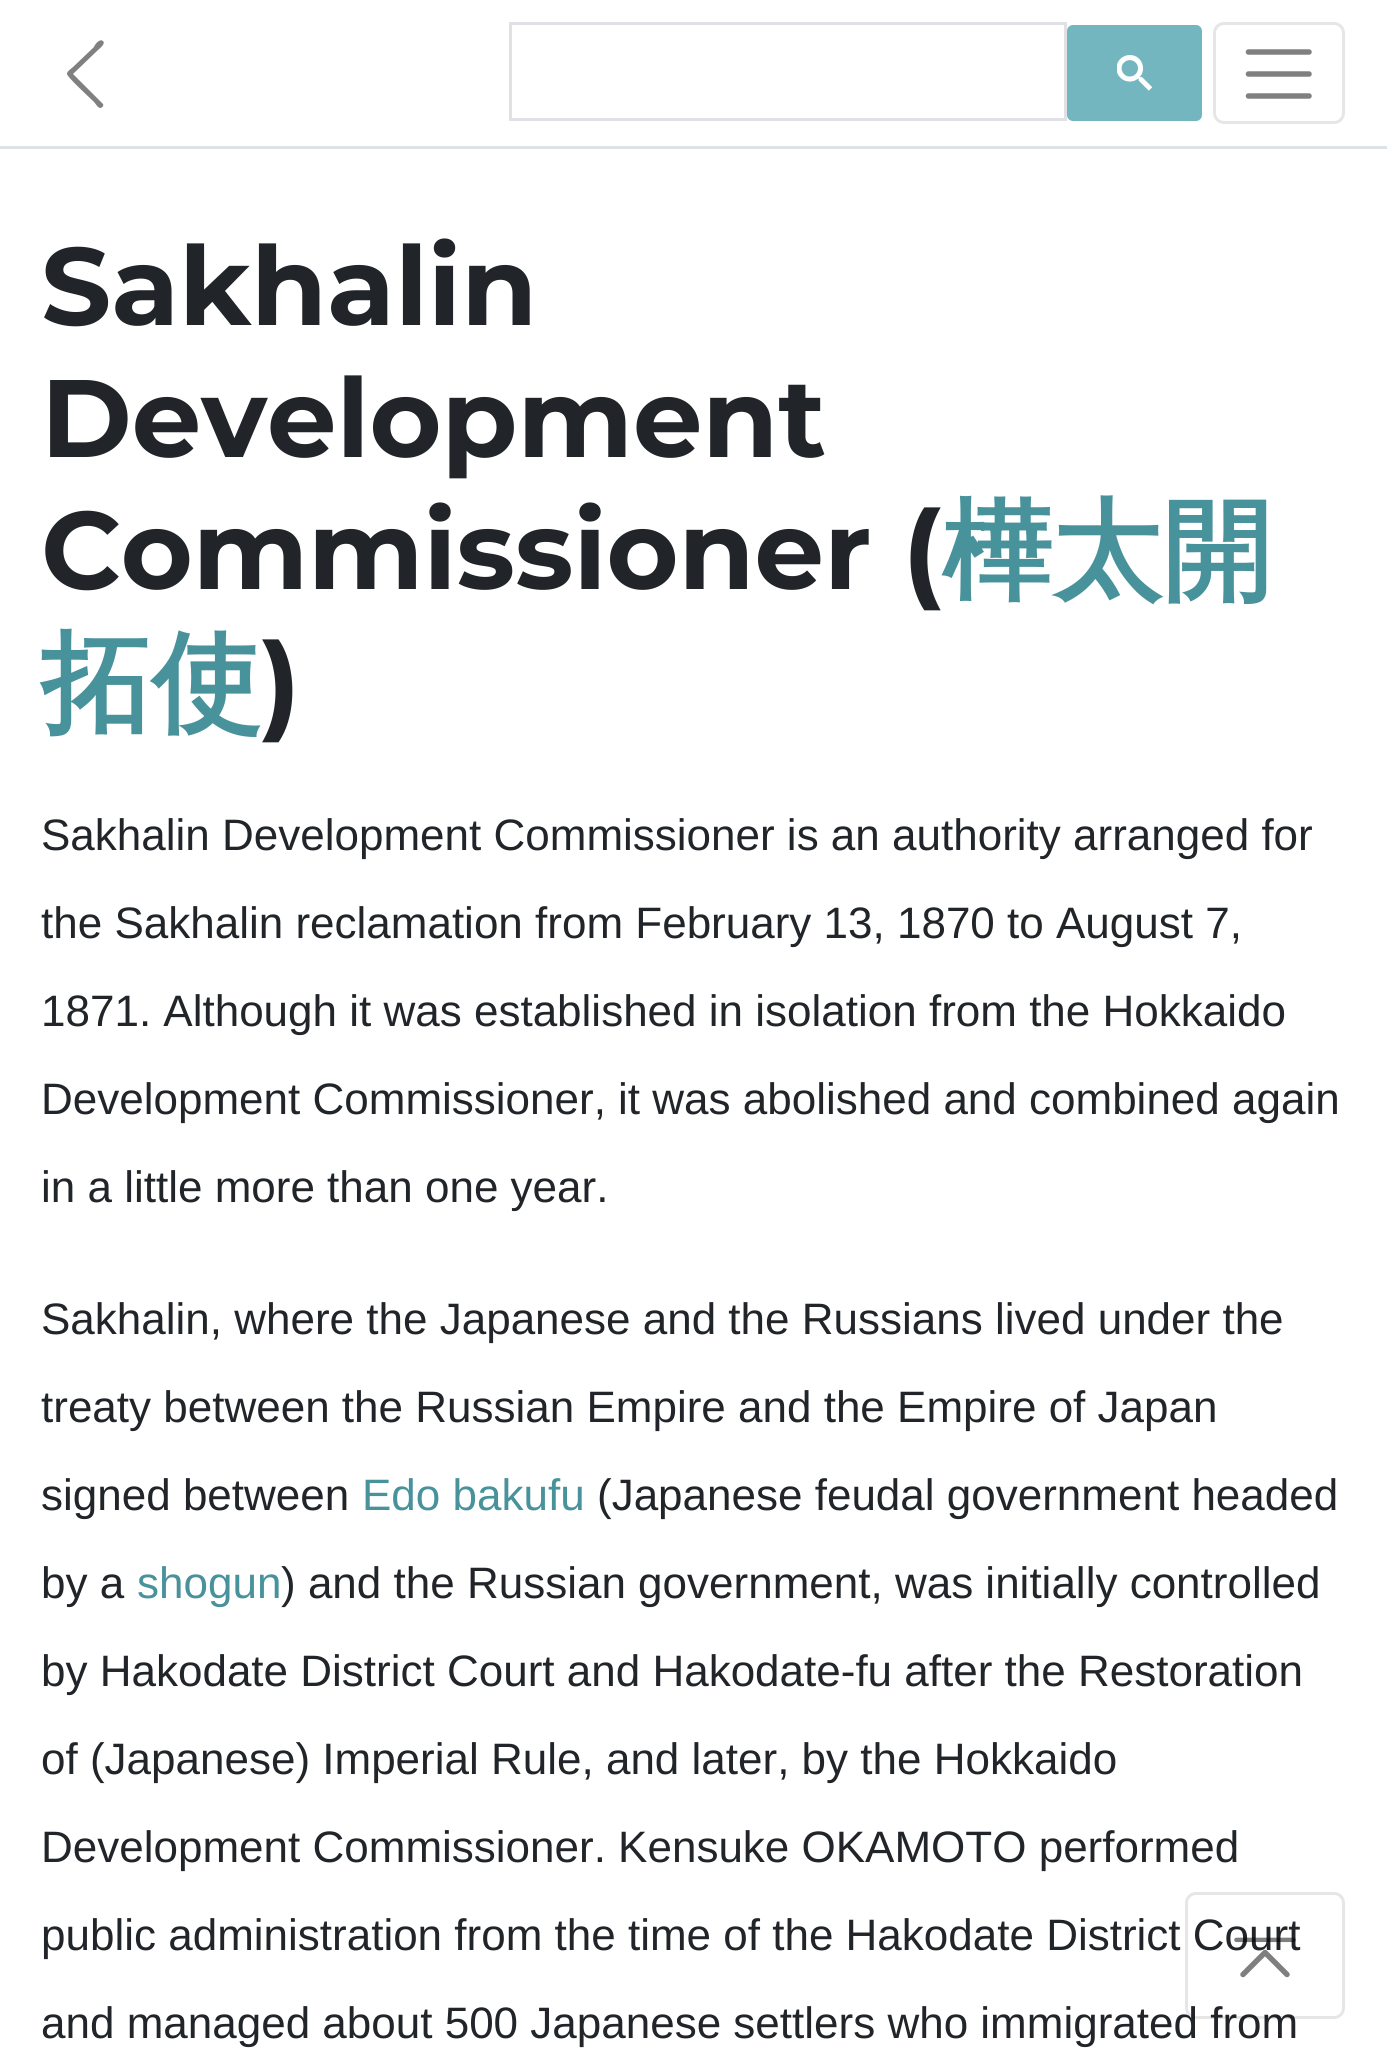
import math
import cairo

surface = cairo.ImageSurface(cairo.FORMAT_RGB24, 1387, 2061)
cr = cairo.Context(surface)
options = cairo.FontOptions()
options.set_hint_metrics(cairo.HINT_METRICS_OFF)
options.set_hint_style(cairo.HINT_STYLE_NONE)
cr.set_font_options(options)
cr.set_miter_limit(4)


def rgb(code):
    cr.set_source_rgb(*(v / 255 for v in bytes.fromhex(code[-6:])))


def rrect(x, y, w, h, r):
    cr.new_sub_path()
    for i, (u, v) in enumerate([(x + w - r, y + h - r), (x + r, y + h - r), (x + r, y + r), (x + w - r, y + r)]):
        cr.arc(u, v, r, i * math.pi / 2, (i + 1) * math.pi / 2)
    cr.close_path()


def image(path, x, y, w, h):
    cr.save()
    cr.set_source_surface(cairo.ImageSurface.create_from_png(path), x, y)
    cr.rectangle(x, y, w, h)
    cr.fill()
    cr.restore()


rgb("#ffffff")
cr.paint()
rgb("#dee2e6")
cr.rectangle(0, 146, 1387, 3)
cr.fill()
rgb("#808080")
cr.set_fill_rule(cairo.FILL_RULE_EVEN_ODD)
cr.new_path()
cr.move_to(103, 41)
cr.curve_to(106, 44, 99, 49, 98, 50)
cr.line_to(73, 74)
cr.line_to(103, 104)
cr.curve_to(104, 106, 102, 108, 100, 108)
cr.curve_to(97, 107, 96, 104, 94, 102)
cr.curve_to(90, 98, 67, 77, 67, 74)
cr.curve_to(67, 71, 71, 69, 73, 67)
cr.line_to(94, 47)
cr.curve_to(94, 46, 99, 38, 103, 41)
cr.close_path()
cr.fill()
cr.rectangle(510.5, 23.5, 555, 96)
rgb("#dfe1e5")
cr.set_line_width(3)
cr.stroke()
rgb("#73b6bf")
rrect(1068.5, 26.5, 132, 93, 4.5)
cr.fill_preserve()
cr.stroke()
image("img/1.png", 1117, 55, 35, 36)
rrect(1214.5, 23.5, 129, 99, 9.5)
rgb("#e6e6e6")
cr.stroke()
cr.new_path()
cr.move_to(1248.5, 52)
cr.line_to(1309, 52)
cr.move_to(1248.5, 74)
cr.line_to(1309, 74)
cr.move_to(1248.5, 96)
cr.line_to(1309, 96)
rgb("#808080")
cr.set_line_width(5.5)
cr.set_line_cap(cairo.LINE_CAP_ROUND)
cr.stroke()
cr.select_font_face("Montserrat", cairo.FONT_SLANT_NORMAL, cairo.FONT_WEIGHT_BOLD)
cr.set_font_size(110)
rgb("#212529")
for x, y, s in [
    (41, 325, "Sakhalin"),
    (41, 457, "Development"),
    (41, 589, "Commissioner ("),
]:
    cr.move_to(x, y)
    cr.show_text(s)
cr.select_font_face("WenQuanYi Zen Hei", cairo.FONT_SLANT_NORMAL, cairo.FONT_WEIGHT_BOLD)
rgb("#48929b")
cr.move_to(942, 589)
cr.show_text("樺太開")
cr.move_to(41, 721)
cr.show_text("拓使")
cr.select_font_face("Montserrat", cairo.FONT_SLANT_NORMAL, cairo.FONT_WEIGHT_BOLD)
rgb("#212529")
cr.move_to(261, 721)
cr.show_text(")")
cr.select_font_face("Liberation Sans")
cr.set_font_size(44)
for x, y, s in [
    (41, 850, "Sakhalin Development Commissioner is an authority arranged for"),
    (41, 938, "the Sakhalin reclamation from February 13, 1870 to August 7,"),
    (41, 1026, "1871. Although it was established in isolation from the Hokkaido"),
    (41, 1114, "Development Commissioner, it was abolished and combined again"),
    (41, 1202, "in a little more than one year."),
    (41, 1334, "Sakhalin, where the Japanese and the Russians lived under the"),
    (41, 1422, "treaty between the Russian Empire and the Empire of Japan"),
    (41, 1510, "signed between"),
]:
    cr.move_to(x, y)
    cr.show_text(s)
rgb("#48929b")
cr.move_to(362, 1510)
cr.show_text("Edo bakufu")
rgb("#212529")
cr.move_to(597, 1510)
cr.show_text("(Japanese feudal government headed")
cr.move_to(41, 1598)
cr.show_text("by a")
rgb("#48929b")
cr.move_to(137, 1598)
cr.show_text("shogun")
rgb("#212529")
for x, y, s in [
    (281, 1598, ") and the Russian government, was initially controlled"),
    (41, 1686, "by Hakodate District Court and Hakodate-fu after the Restoration"),
    (41, 1774, "of (Japanese) Imperial Rule, and later, by the Hokkaido"),
    (41, 1862, "Development Commissioner. Kensuke OKAMOTO performed"),
    (41, 1950, "public administration from the time of the Hakodate District Court"),
    (41, 2038, "and managed about 500 Japanese settlers who immigrated from"),
]:
    cr.move_to(x, y)
    cr.show_text(s)
rrect(1186.5, 1893.5, 157, 124, 9.5)
cr.set_source_rgba(0, 0, 0, 0.1)
cr.set_line_width(3)
cr.set_line_cap(cairo.LINE_CAP_BUTT)
cr.stroke()
image("img/2.png", 1234, 1937, 62, 41)
surface.write_to_png("page.png")
